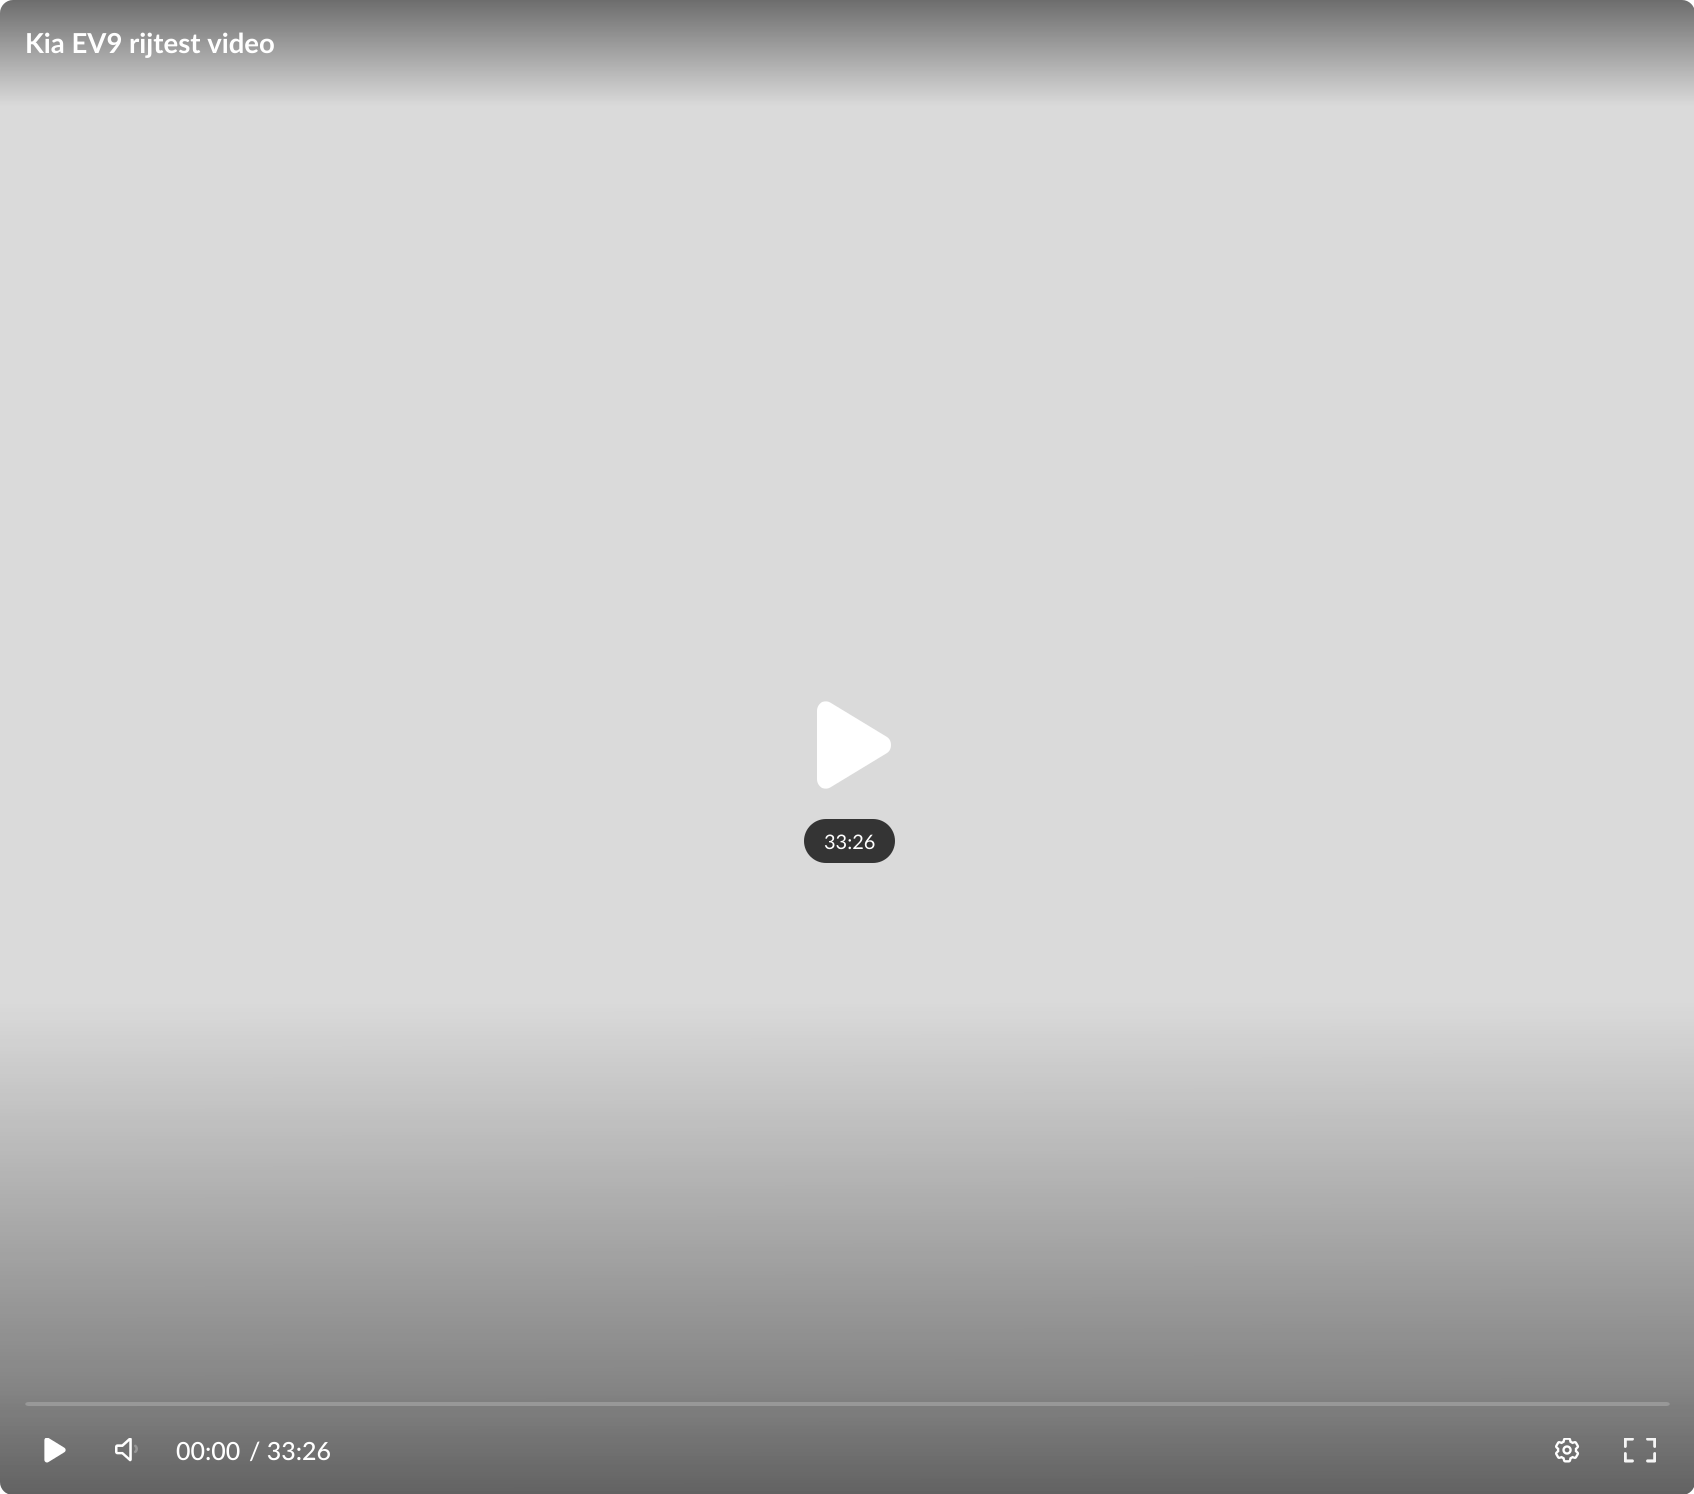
import math
import cairo

surface = cairo.ImageSurface(cairo.FORMAT_RGB24, 1694, 1494)
cr = cairo.Context(surface)
options = cairo.FontOptions()
options.set_hint_metrics(cairo.HINT_METRICS_OFF)
options.set_hint_style(cairo.HINT_STYLE_NONE)
cr.set_font_options(options)
cr.set_miter_limit(4)


def rgb(code):
    cr.set_source_rgb(*(v / 255 for v in bytes.fromhex(code[-6:])))


def rrect(x, y, w, h, r):
    cr.new_sub_path()
    for i, (u, v) in enumerate([(x + w - r, y + h - r), (x + r, y + h - r), (x + r, y + r), (x + w - r, y + r)]):
        cr.arc(u, v, r, i * math.pi / 2, (i + 1) * math.pi / 2)
    cr.close_path()


def image(path, x, y, w, h):
    cr.save()
    cr.set_source_surface(cairo.ImageSurface.create_from_png(path), x, y)
    cr.rectangle(x, y, w, h)
    cr.fill()
    cr.restore()


rgb("#ffffff")
cr.paint()
rgb("#dadada")
rrect(0, 0, 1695, 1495, 13)
cr.fill()
rgb("#ffffff")
cr.new_path()
cr.move_to(887, 737)
cr.curve_to(890, 739, 891, 742, 891, 745)
cr.curve_to(891, 748, 890, 751, 887, 753)
cr.line_to(831, 787)
cr.curve_to(828, 789, 825, 789, 822, 788)
cr.curve_to(819, 786, 817, 783, 817, 779)
cr.line_to(817, 711)
cr.curve_to(817, 707, 819, 704, 822, 702)
cr.curve_to(825, 701, 828, 701, 831, 703)
cr.close_path()
cr.fill()
rgb("#343434")
rrect(804, 819, 91, 44, 22)
cr.fill()
gradient = cairo.LinearGradient(847, 0, 848, 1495)
gradient.add_color_stop_rgba(0.67, 0, 0, 0, 0)
gradient.add_color_stop_rgba(1, 0, 0, 0, 0.5)
cr.set_source(gradient)
rrect(0, 0, 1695, 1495, 13)
cr.fill()
gradient = cairo.LinearGradient(848, 0, 848, 106)
gradient.add_color_stop_rgba(0, 0, 0, 0, 0.5)
gradient.add_color_stop_rgba(1, 0, 0, 0, 0)
cr.set_source(gradient)
cr.new_path()
cr.move_to(13, 0)
cr.line_to(1682, 0)
cr.curve_to(1689, 0, 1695, 6, 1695, 13)
cr.line_to(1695, 106)
cr.line_to(0, 106)
cr.line_to(0, 13)
cr.curve_to(0, 6, 6, 0, 13, 0)
cr.close_path()
cr.fill()
gradient = cairo.LinearGradient(848, 1385, 848, 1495)
gradient.add_color_stop_rgba(0, 0, 0, 0, 0)
gradient.add_color_stop_rgba(1, 0, 0, 0, 0.1)
cr.set_source(gradient)
cr.new_path()
cr.move_to(0, 1385)
cr.line_to(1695, 1385)
cr.line_to(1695, 1482)
cr.curve_to(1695, 1489, 1689, 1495, 1682, 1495)
cr.line_to(13, 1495)
cr.curve_to(6, 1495, 0, 1489, 0, 1482)
cr.close_path()
cr.fill()
rgb("#989898")
cr.new_path()
cr.move_to(29, 1402)
cr.line_to(1666, 1402)
cr.curve_to(1671, 1402, 1671, 1406, 1666, 1406)
cr.line_to(29, 1406)
cr.curve_to(24, 1406, 24, 1402, 29, 1402)
cr.close_path()
cr.fill()
image("img/1.png", 44, 1438, 22, 25)
image("img/2.png", 115, 1438, 23, 24)
image("img/3.png", 1555, 1438, 25, 25)
image("img/4.png", 1624, 1438, 32, 25)
cr.select_font_face("Lato", cairo.FONT_SLANT_NORMAL, cairo.FONT_WEIGHT_BOLD)
cr.set_font_size(27.5)
rgb("#ffffff")
cr.move_to(25, 53)
cr.show_text("Kia EV9 rijtest video")
cr.select_font_face("Lato")
cr.set_font_size(20)
cr.move_to(824, 849)
cr.show_text("33:26")
cr.select_font_face("Lato Medium")
cr.set_font_size(25)
cr.move_to(176, 1460)
cr.show_text("00:00")
cr.move_to(249, 1460)
cr.show_text("/ 33:26")
surface.write_to_png("page.png")
